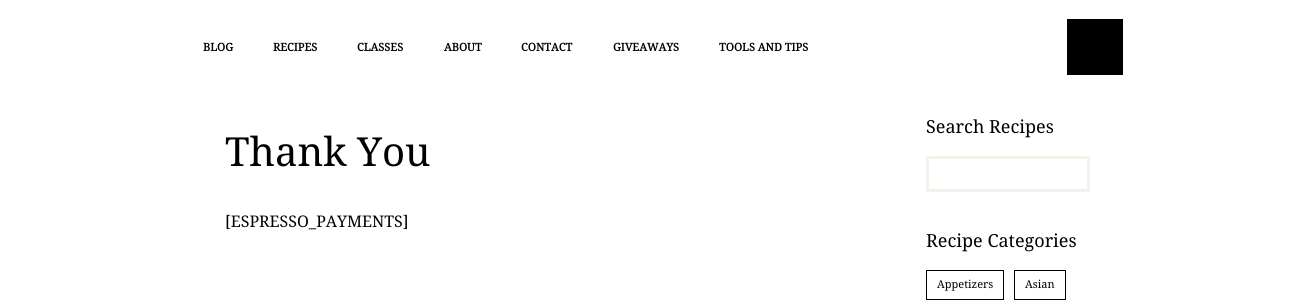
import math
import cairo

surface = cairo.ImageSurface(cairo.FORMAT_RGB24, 1306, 305)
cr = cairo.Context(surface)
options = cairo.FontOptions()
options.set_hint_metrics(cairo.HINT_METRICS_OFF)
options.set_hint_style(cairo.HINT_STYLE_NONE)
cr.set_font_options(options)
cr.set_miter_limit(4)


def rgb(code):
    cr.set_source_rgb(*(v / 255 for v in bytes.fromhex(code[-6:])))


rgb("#ffffff")
cr.paint()
rgb("#000000")
cr.rectangle(1067, 19, 56, 56)
cr.fill()
cr.rectangle(927.5, 157.5, 161, 33)
rgb("#f2f2e9")
cr.set_line_width(3)
cr.stroke()
cr.rectangle(926.5, 270.5, 77, 29)
rgb("#000000")
cr.set_line_width(1)
cr.stroke()
cr.rectangle(1014.5, 270.5, 51, 29)
cr.stroke()
cr.select_font_face("Droid Serif", cairo.FONT_SLANT_NORMAL, cairo.FONT_WEIGHT_BOLD)
cr.set_font_size(11)
for x, y, s in [
    (203, 51, "BLOG"),
    (273, 51, "RECIPES"),
    (357, 51, "CLASSES"),
    (444, 51, "ABOUT"),
    (521, 51, "CONTACT"),
    (613, 51, "GIVEAWAYS"),
    (719, 51, "TOOLS AND TIPS"),
]:
    cr.move_to(x, y)
    cr.show_text(s)
cr.select_font_face("Droid Serif")
cr.set_font_size(40)
cr.move_to(225, 166)
cr.show_text("Thank You")
cr.set_font_size(16)
cr.move_to(225, 227)
cr.show_text("[ESPRESSO_PAYMENTS]")
cr.set_font_size(18)
cr.move_to(926, 133)
cr.show_text("Search Recipes")
cr.move_to(926, 247)
cr.show_text("Recipe Categories")
cr.set_font_size(11)
cr.move_to(937, 288)
cr.show_text("Appetizers")
cr.move_to(1025, 288)
cr.show_text("Asian")
surface.write_to_png("page.png")
